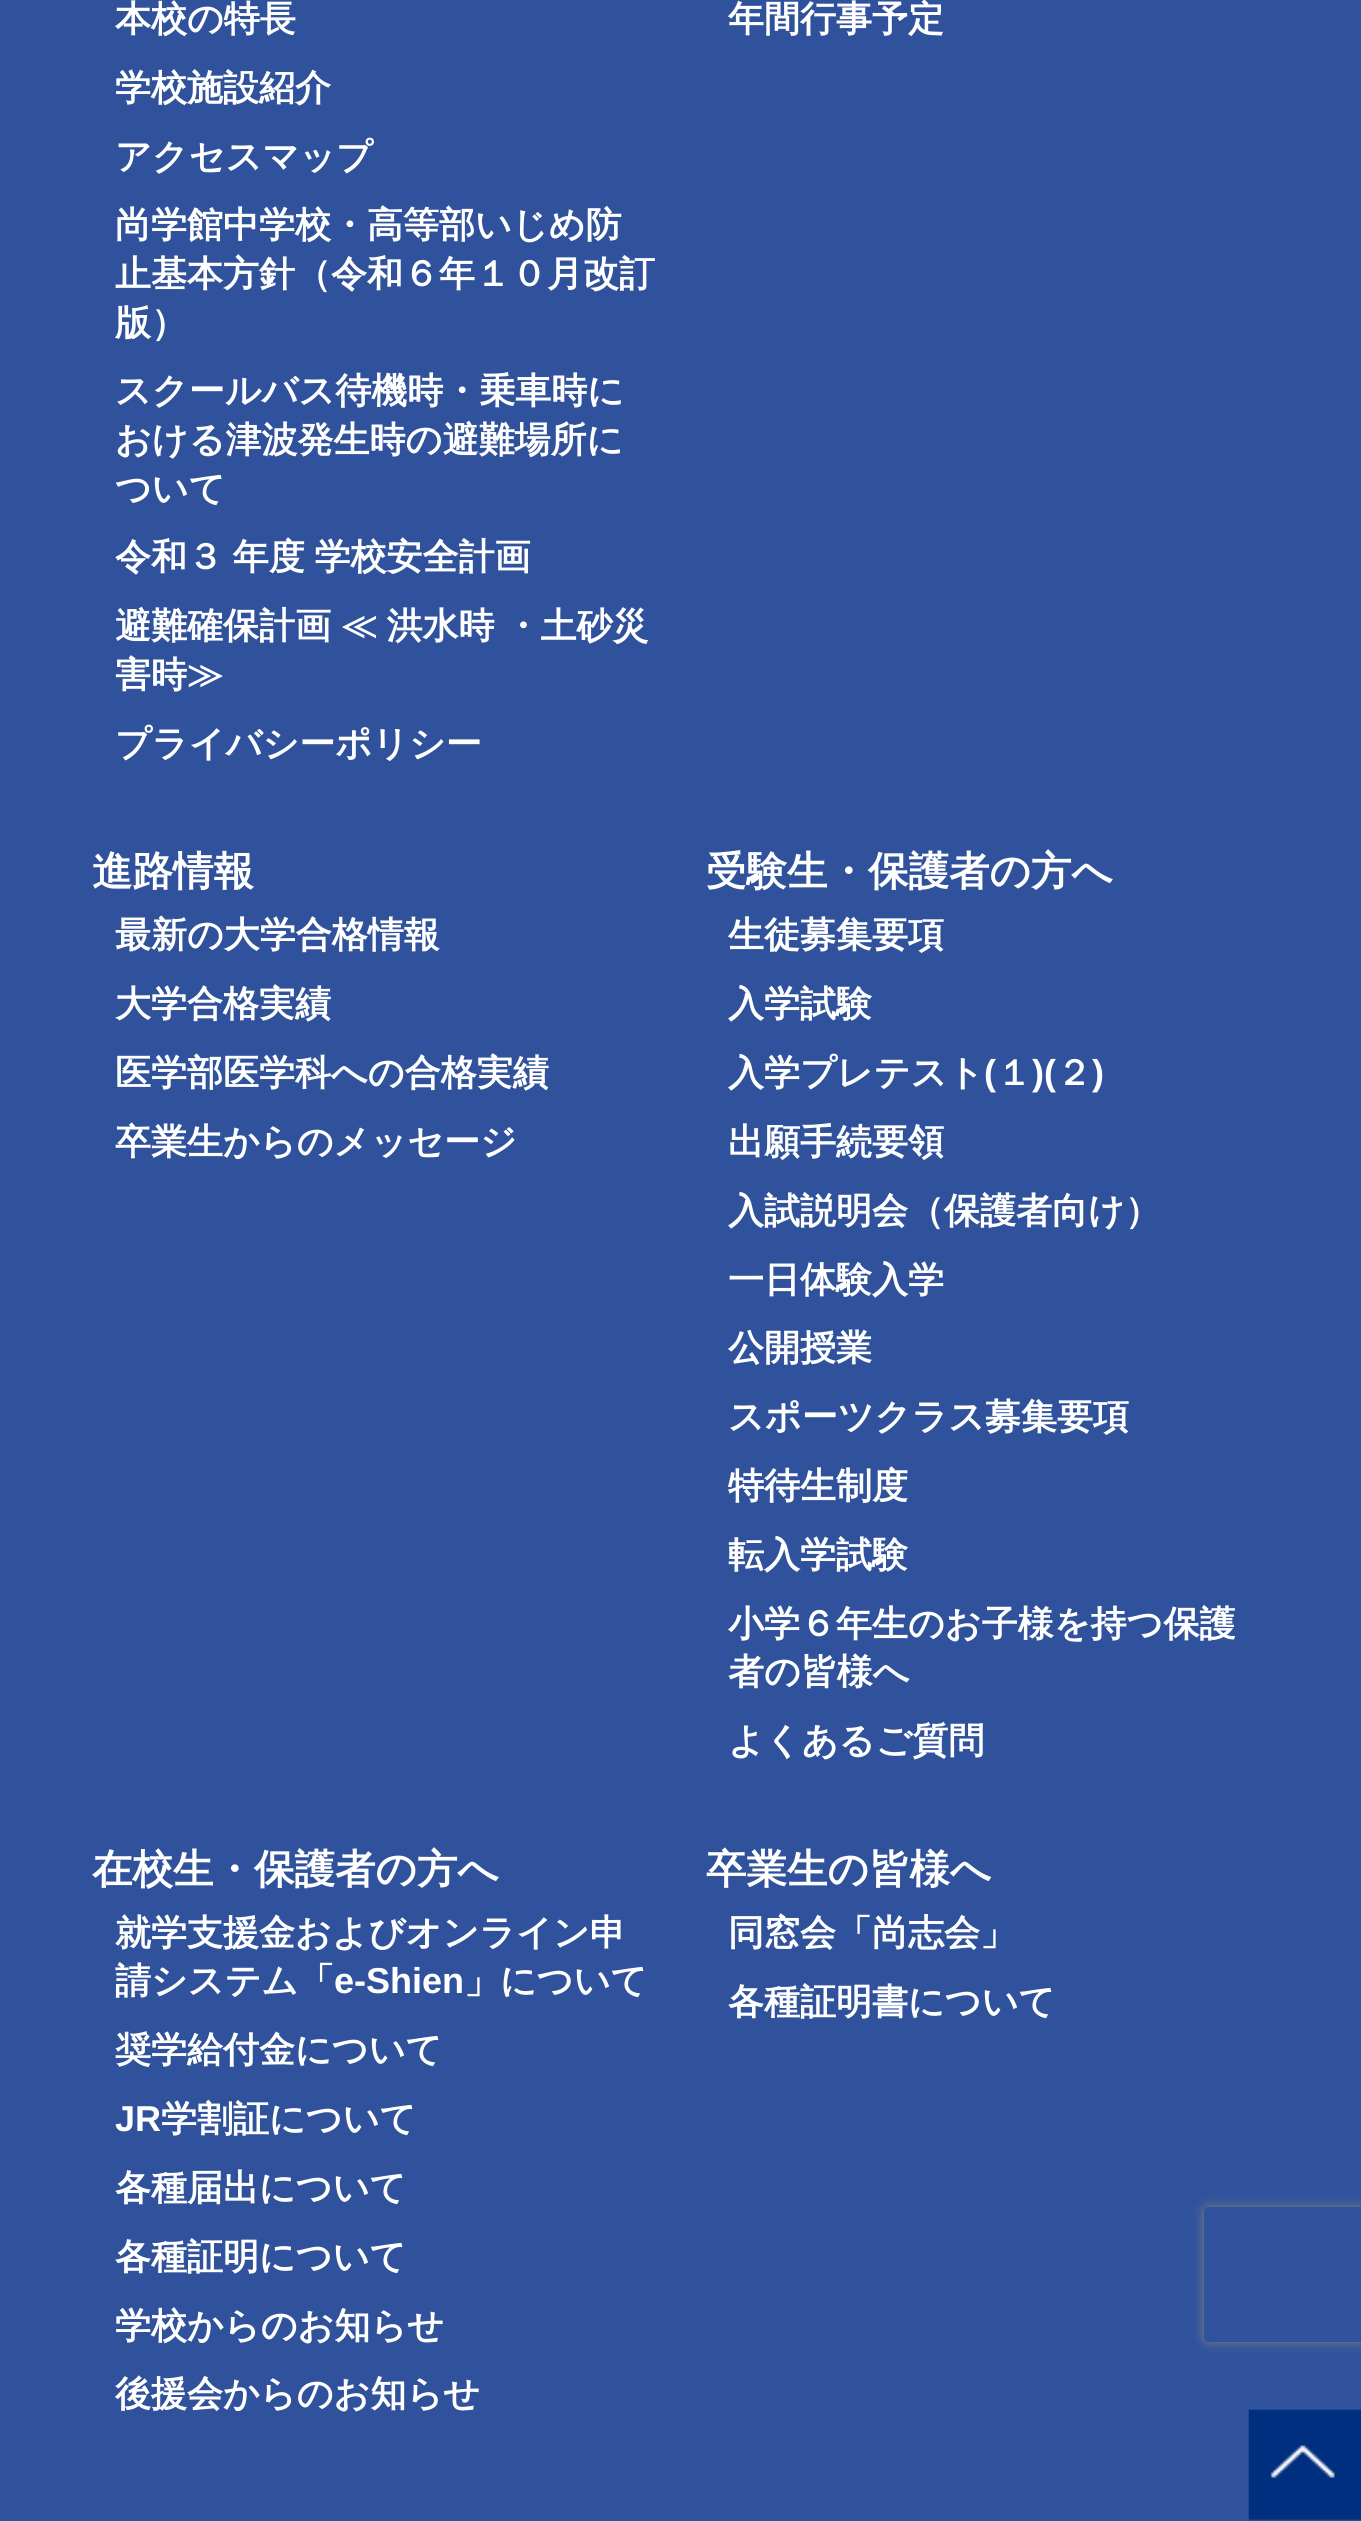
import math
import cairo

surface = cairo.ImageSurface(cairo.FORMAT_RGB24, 1361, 2521)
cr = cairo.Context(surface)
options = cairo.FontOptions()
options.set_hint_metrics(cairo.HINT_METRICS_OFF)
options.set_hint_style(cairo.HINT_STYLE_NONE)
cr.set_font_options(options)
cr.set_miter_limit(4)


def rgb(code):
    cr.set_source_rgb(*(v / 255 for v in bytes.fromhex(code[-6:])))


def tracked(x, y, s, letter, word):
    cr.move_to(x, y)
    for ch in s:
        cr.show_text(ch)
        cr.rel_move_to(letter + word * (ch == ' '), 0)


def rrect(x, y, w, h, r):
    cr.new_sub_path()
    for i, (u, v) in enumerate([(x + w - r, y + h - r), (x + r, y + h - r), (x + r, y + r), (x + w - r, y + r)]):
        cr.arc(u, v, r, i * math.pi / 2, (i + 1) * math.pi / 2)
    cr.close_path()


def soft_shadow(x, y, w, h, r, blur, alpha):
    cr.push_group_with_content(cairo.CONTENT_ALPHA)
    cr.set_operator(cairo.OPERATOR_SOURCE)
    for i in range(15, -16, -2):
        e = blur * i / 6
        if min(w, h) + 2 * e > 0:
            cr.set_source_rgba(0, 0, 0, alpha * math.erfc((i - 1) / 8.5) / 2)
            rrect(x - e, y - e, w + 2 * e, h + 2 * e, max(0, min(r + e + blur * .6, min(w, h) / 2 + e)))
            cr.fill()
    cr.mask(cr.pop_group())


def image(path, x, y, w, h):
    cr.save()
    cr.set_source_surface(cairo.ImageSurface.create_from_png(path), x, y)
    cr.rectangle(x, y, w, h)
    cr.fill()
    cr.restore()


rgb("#30529c")
cr.paint()
cr.save()
cr.set_fill_rule(cairo.FILL_RULE_EVEN_ODD)
cr.new_path()
cr.move_to(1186, 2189)
cr.line_to(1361, 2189)
cr.line_to(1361, 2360)
cr.line_to(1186, 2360)
cr.close_path()
cr.move_to(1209, 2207)
cr.line_to(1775, 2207)
cr.curve_to(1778, 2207, 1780, 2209, 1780, 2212)
cr.line_to(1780, 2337)
cr.curve_to(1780, 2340, 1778, 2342, 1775, 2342)
cr.line_to(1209, 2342)
cr.curve_to(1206, 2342, 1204, 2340, 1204, 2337)
cr.line_to(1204, 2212)
cr.curve_to(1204, 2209, 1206, 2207, 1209, 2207)
cr.close_path()
cr.clip()
rgb("#808080")
soft_shadow(1204, 2207, 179, 135, 5, 5.5, 1)
cr.restore()
image("img/1.png", 1248, 2409, 113, 112)
cr.select_font_face("WenQuanYi Zen Hei", cairo.FONT_SLANT_NORMAL, cairo.FONT_WEIGHT_BOLD)
cr.set_font_size(36)
rgb("#ffffff")
for x, y, s in [
    (115, 31, "本校の特長"),
    (115, 100, "学校施設紹介"),
    (115, 169, "アクセスマップ"),
    (115, 237, "尚学館中学校・高等部いじめ防"),
    (115, 286, "止基本方針（令和６年１０月改訂"),
    (115, 335, "版）"),
    (115, 403, "スクールバス待機時・乗車時に"),
    (115, 452, "おける津波発生時の避難場所に"),
    (115, 501, "ついて"),
]:
    cr.move_to(x, y)
    cr.show_text(s)
tracked(115, 569, "令和３ 年度 学校安全計画", 0, -1)
tracked(115, 638, "避難確保計画 ≪ 洪水時 ・土砂災", 0, -1)
for x, y, s in [
    (115, 687, "害時≫"),
    (115, 756, "プライバシーポリシー"),
    (728, 31, "年間行事予定"),
]:
    cr.move_to(x, y)
    cr.show_text(s)
cr.set_font_size(40.5)
cr.move_to(92, 885)
cr.show_text("進路情報")
cr.set_font_size(36)
for x, y, s in [
    (115, 947, "最新の大学合格情報"),
    (115, 1016, "大学合格実績"),
    (115, 1085, "医学部医学科への合格実績"),
    (115, 1154, "卒業生からのメッセージ"),
]:
    cr.move_to(x, y)
    cr.show_text(s)
cr.set_font_size(40.5)
cr.move_to(706, 885)
cr.show_text("受験生・保護者の方へ")
cr.set_font_size(36)
for x, y, s in [
    (728, 947, "生徒募集要項"),
    (728, 1016, "入学試験"),
    (728, 1085, "入学プレテスト"),
]:
    cr.move_to(x, y)
    cr.show_text(s)
cr.select_font_face("Liberation Sans", cairo.FONT_SLANT_NORMAL, cairo.FONT_WEIGHT_BOLD)
cr.move_to(984, 1085)
cr.show_text("(")
cr.select_font_face("WenQuanYi Zen Hei", cairo.FONT_SLANT_NORMAL, cairo.FONT_WEIGHT_BOLD)
cr.move_to(996, 1085)
cr.show_text("１")
cr.select_font_face("Liberation Sans", cairo.FONT_SLANT_NORMAL, cairo.FONT_WEIGHT_BOLD)
cr.move_to(1032, 1085)
cr.show_text(")(")
cr.select_font_face("WenQuanYi Zen Hei", cairo.FONT_SLANT_NORMAL, cairo.FONT_WEIGHT_BOLD)
cr.move_to(1056, 1085)
cr.show_text("２")
cr.select_font_face("Liberation Sans", cairo.FONT_SLANT_NORMAL, cairo.FONT_WEIGHT_BOLD)
cr.move_to(1092, 1085)
cr.show_text(")")
cr.select_font_face("WenQuanYi Zen Hei", cairo.FONT_SLANT_NORMAL, cairo.FONT_WEIGHT_BOLD)
for x, y, s in [
    (728, 1154, "出願手続要領"),
    (728, 1223, "入試説明会（保護者向け）"),
    (728, 1292, "一日体験入学"),
    (728, 1360, "公開授業"),
    (728, 1429, "スポーツクラス募集要項"),
    (728, 1498, "特待生制度"),
    (728, 1567, "転入学試験"),
    (728, 1636, "小学６年生のお子様を持つ保護"),
    (728, 1684, "者の皆様へ"),
    (728, 1753, "よくあるご質問"),
]:
    cr.move_to(x, y)
    cr.show_text(s)
cr.set_font_size(40.5)
cr.move_to(92, 1883)
cr.show_text("在校生・保護者の方へ")
cr.set_font_size(36)
cr.move_to(115, 1945)
cr.show_text("就学支援金およびオンライン申")
cr.move_to(115, 1993)
cr.show_text("請システム「")
cr.select_font_face("Liberation Sans", cairo.FONT_SLANT_NORMAL, cairo.FONT_WEIGHT_BOLD)
cr.move_to(334, 1993)
cr.show_text("e-Shien")
cr.select_font_face("WenQuanYi Zen Hei", cairo.FONT_SLANT_NORMAL, cairo.FONT_WEIGHT_BOLD)
cr.move_to(464, 1993)
cr.show_text("」について")
cr.move_to(115, 2062)
cr.show_text("奨学給付金について")
cr.select_font_face("Liberation Sans", cairo.FONT_SLANT_NORMAL, cairo.FONT_WEIGHT_BOLD)
cr.move_to(115, 2131)
cr.show_text("JR")
cr.select_font_face("WenQuanYi Zen Hei", cairo.FONT_SLANT_NORMAL, cairo.FONT_WEIGHT_BOLD)
for x, y, s in [
    (161, 2131, "学割証について"),
    (115, 2200, "各種届出について"),
    (115, 2269, "各種証明について"),
    (115, 2338, "学校からのお知らせ"),
    (115, 2406, "後援会からのお知らせ"),
]:
    cr.move_to(x, y)
    cr.show_text(s)
cr.set_font_size(40.5)
cr.move_to(706, 1883)
cr.show_text("卒業生の皆様へ")
cr.set_font_size(36)
cr.move_to(728, 1945)
cr.show_text("同窓会「尚志会」")
cr.move_to(728, 2014)
cr.show_text("各種証明書について")
surface.write_to_png("page.png")
